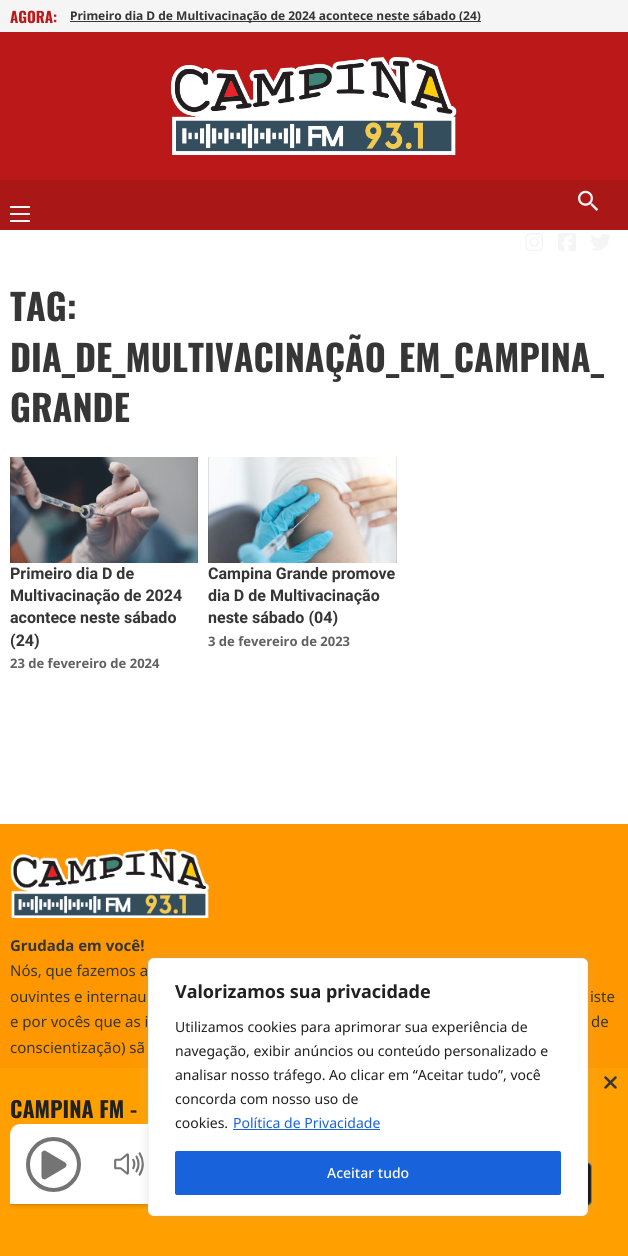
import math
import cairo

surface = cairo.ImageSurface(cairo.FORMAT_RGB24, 628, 1256)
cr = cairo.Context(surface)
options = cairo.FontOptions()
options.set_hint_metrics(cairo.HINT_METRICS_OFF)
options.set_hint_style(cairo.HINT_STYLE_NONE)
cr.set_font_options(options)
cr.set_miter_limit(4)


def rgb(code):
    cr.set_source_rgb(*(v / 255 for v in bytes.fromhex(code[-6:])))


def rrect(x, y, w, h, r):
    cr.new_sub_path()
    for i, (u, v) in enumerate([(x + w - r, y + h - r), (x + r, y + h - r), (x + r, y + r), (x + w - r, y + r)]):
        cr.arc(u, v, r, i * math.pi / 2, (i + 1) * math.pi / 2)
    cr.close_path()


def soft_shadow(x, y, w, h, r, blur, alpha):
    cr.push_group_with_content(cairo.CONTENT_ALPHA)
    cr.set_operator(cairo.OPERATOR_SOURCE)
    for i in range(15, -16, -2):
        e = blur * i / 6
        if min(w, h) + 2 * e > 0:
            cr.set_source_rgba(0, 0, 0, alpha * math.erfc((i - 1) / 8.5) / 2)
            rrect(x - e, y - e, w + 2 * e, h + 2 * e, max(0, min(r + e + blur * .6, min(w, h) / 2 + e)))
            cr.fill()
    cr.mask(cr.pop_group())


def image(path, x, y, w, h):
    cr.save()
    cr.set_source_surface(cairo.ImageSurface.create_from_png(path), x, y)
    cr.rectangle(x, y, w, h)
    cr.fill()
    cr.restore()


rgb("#ffffff")
cr.paint()
for x, y, w, h, color in [
    (0, 0, 628, 32, "#f5f5f5"),
    (70, 21, 411, 1, "#363636"),
    (0, 32, 628, 148, "#bb1919"),
]:
    rgb(color)
    cr.rectangle(x, y, w, h)
    cr.fill()
image("img/1.png", 171, 57, 286, 98)
for x, y, w, h, color in [
    (0, 180, 628, 50, "#a91717"),
    (10, 206, 20, 2, "#f5f5f5"),
    (10, 213, 20, 2, "#f5f5f5"),
    (10, 220, 20, 2, "#f5f5f5"),
]:
    rgb(color)
    cr.rectangle(x, y, w, h)
    cr.fill()
image("img/2.png", 578, 190, 21, 21)
image("img/3.png", 525, 233, 18, 18)
image("img/4.png", 558, 233, 18, 18)
image("img/5.png", 591, 234, 19, 17)
rgb("#ffa000")
cr.rectangle(0, 1068, 628, 188)
cr.fill()
image("img/6.png", 604, 1076, 13, 13)
image("img/7.png", 10, 1124, 138, 85)
image("img/8.png", 588, 1161, 4, 46)
image("img/9.png", 10, 457, 188, 106)
image("img/10.png", 208, 457, 189, 106)
rgb("#ff9800")
cr.rectangle(0, 824, 628, 244)
cr.fill()
image("img/11.png", 10, 849, 200, 69)
rgb("#acabab")
soft_shadow(148, 957, 440, 258, 6, 5, 0.3)
rgb("#ffffff")
rrect(148.5, 958.5, 439, 257, 5.5)
cr.fill_preserve()
rgb("#f4f4f4")
cr.set_line_width(1)
cr.stroke()
rgb("#1863dc")
cr.rectangle(233, 1129, 147, 1)
cr.fill()
rrect(176, 1152, 384, 42, 1)
cr.fill_preserve()
cr.set_line_width(2)
cr.stroke()
cr.select_font_face("Oswald", cairo.FONT_SLANT_NORMAL, cairo.FONT_WEIGHT_BOLD)
cr.set_font_size(15)
rgb("#bb1919")
cr.move_to(10, 23)
cr.show_text("AGORA:")
cr.select_font_face("Noto Sans", cairo.FONT_SLANT_NORMAL, cairo.FONT_WEIGHT_BOLD)
cr.set_font_size(12)
rgb("#363636")
cr.move_to(70, 20)
cr.show_text("Primeiro dia D de Multivacinação de 2024 acontece neste sábado (24)")
cr.select_font_face("Oswald", cairo.FONT_SLANT_NORMAL, cairo.FONT_WEIGHT_BOLD)
cr.set_font_size(22)
rgb("#212121")
cr.move_to(10, 1118)
cr.show_text("CAMPINA FM -")
cr.set_font_size(36)
rgb("#363636")
for x, y, s in [
    (10, 321, "TAG:"),
    (10, 372, "DIA_DE_MULTIVACINAÇÃO_EM_CAMPINA_"),
    (10, 422, "GRANDE"),
]:
    cr.move_to(x, y)
    cr.show_text(s)
cr.select_font_face("Heebo", cairo.FONT_SLANT_NORMAL, cairo.FONT_WEIGHT_BOLD)
cr.set_font_size(16)
for x, y, s in [
    (10, 579, "Primeiro dia D de"),
    (10, 601, "Multivacinação de 2024"),
    (10, 623, "acontece neste sábado"),
    (10, 646, "(24)"),
]:
    cr.move_to(x, y)
    cr.show_text(s)
cr.select_font_face("Noto Sans", cairo.FONT_SLANT_NORMAL, cairo.FONT_WEIGHT_BOLD)
cr.set_font_size(13)
rgb("#616161")
cr.move_to(10, 668)
cr.show_text("23 de fevereiro de 2024")
cr.select_font_face("Heebo", cairo.FONT_SLANT_NORMAL, cairo.FONT_WEIGHT_BOLD)
cr.set_font_size(16)
rgb("#363636")
for x, y, s in [
    (208, 579, "Campina Grande promove"),
    (208, 601, "dia D de Multivacinação"),
    (208, 623, "neste sábado (04)"),
]:
    cr.move_to(x, y)
    cr.show_text(s)
cr.select_font_face("Noto Sans", cairo.FONT_SLANT_NORMAL, cairo.FONT_WEIGHT_BOLD)
cr.set_font_size(13)
rgb("#616161")
cr.move_to(208, 646)
cr.show_text("3 de fevereiro de 2023")
cr.set_font_size(15)
rgb("#363636")
cr.move_to(10, 951)
cr.show_text("Grudada em você!")
cr.select_font_face("Noto Sans")
for x, y, s in [
    (10, 976, "Nós, que fazemos a"),
    (10, 1002, "ouvintes e internau"),
    (590, 1002, "iste"),
    (10, 1027, "e por vocês que as i"),
    (591, 1027, "de"),
    (10, 1053, "conscientização) sã"),
]:
    cr.move_to(x, y)
    cr.show_text(s)
cr.select_font_face("Noto Sans", cairo.FONT_SLANT_NORMAL, cairo.FONT_WEIGHT_BOLD)
cr.set_font_size(18)
rgb("#212121")
cr.move_to(175, 998)
cr.show_text("Valorizamos sua privacidade")
cr.select_font_face("Noto Sans")
cr.set_font_size(14)
for x, y, s in [
    (175, 1032, "Utilizamos cookies para aprimorar sua experiência de"),
    (175, 1056, "navegação, exibir anúncios ou conteúdo personalizado e"),
    (175, 1080, "analisar nosso tráfego. Ao clicar em “Aceitar tudo”, você"),
    (175, 1104, "concorda com nosso uso de"),
    (175, 1128, "cookies."),
]:
    cr.move_to(x, y)
    cr.show_text(s)
rgb("#1863dc")
cr.move_to(233, 1128)
cr.show_text("Política de Privacidade")
cr.select_font_face("Noto Sans Medium")
rgb("#ffffff")
cr.move_to(327, 1178)
cr.show_text("Aceitar tudo")
surface.write_to_png("page.png")
